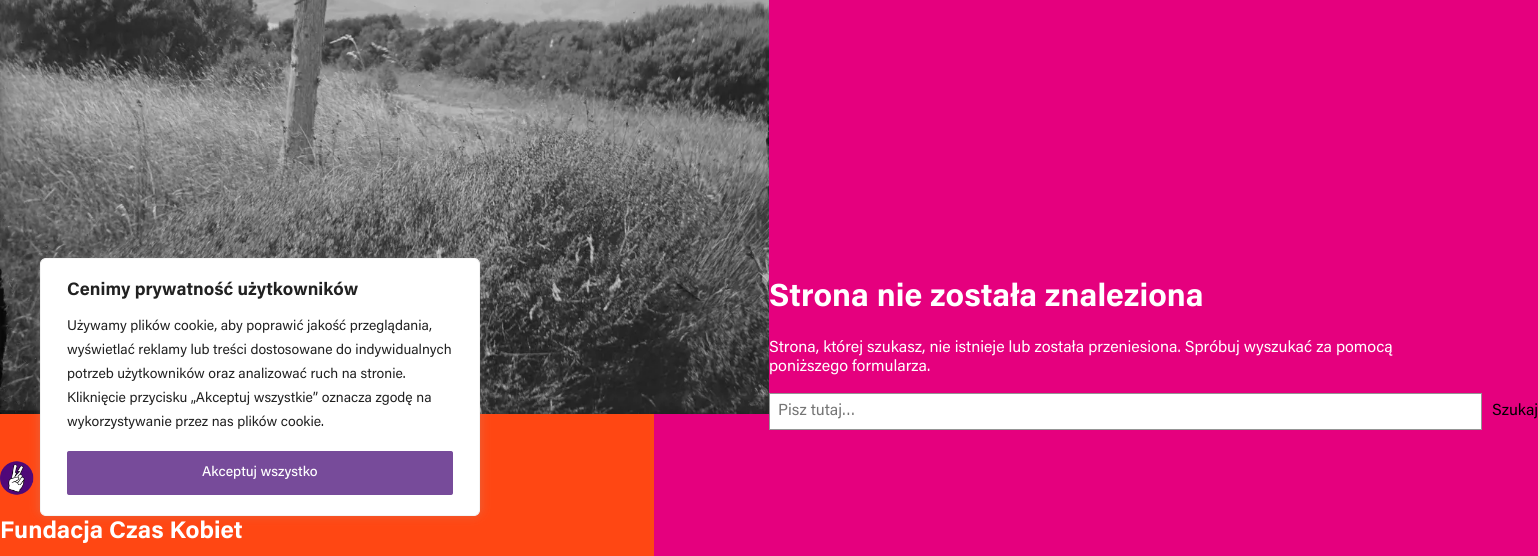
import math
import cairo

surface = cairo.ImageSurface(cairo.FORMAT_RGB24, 1538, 556)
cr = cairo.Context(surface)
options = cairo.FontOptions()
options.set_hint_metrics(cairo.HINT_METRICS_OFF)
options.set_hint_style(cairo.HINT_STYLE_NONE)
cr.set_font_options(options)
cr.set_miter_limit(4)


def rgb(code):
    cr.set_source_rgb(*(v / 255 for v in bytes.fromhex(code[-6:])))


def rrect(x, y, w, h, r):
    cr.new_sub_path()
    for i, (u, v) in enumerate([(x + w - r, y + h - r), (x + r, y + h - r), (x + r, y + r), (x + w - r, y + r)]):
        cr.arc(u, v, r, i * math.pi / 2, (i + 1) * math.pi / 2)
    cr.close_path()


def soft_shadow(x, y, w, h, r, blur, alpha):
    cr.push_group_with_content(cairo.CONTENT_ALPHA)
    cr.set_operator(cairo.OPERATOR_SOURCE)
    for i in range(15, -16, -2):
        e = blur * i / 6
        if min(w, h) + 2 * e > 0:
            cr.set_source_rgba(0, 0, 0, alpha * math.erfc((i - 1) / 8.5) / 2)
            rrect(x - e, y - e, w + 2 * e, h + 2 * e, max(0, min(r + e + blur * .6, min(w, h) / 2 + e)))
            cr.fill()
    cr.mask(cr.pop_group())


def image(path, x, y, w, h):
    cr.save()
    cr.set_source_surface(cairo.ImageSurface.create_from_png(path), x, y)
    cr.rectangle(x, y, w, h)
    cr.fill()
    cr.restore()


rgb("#ff4713")
cr.paint()
rgb("#e5007e")
cr.rectangle(654, 0, 884, 556)
cr.fill()
image("img/1.png", 0, 0, 769, 414)
image("img/2.png", 0, 461, 34, 34)
rgb("#acabab")
soft_shadow(40, 257, 440, 258, 6, 5, 0.3)
rgb("#ffffff")
rrect(40.5, 258.5, 439, 257, 5.5)
cr.fill_preserve()
rgb("#f4f4f4")
cr.set_line_width(1)
cr.stroke()
rgb("#774b9a")
rrect(68, 452, 384, 42, 1)
cr.fill_preserve()
cr.set_line_width(2)
cr.stroke()
rgb("#ffffff")
cr.rectangle(769.5, 393.5, 712, 36)
cr.fill_preserve()
rgb("#949494")
cr.set_line_width(1)
cr.stroke()
cr.select_font_face("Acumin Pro", cairo.FONT_SLANT_NORMAL, cairo.FONT_WEIGHT_BOLD)
cr.set_font_size(18)
rgb("#212121")
cr.move_to(67, 295)
cr.show_text("Cenimy prywatność użytkowników")
cr.select_font_face("Acumin Pro")
cr.set_font_size(14)
for x, y, s in [
    (67, 330, "Używamy plików cookie, aby poprawić jakość przeglądania,"),
    (67, 354, "wyświetlać reklamy lub treści dostosowane do indywidualnych"),
    (67, 378, "potrzeb użytkowników oraz analizować ruch na stronie."),
    (67, 402, "Kliknięcie przycisku „Akceptuj wszystkie” oznacza zgodę na"),
    (67, 426, "wykorzystywanie przez nas plików cookie."),
]:
    cr.move_to(x, y)
    cr.show_text(s)
cr.select_font_face("Acumin Pro Medium")
rgb("#ffffff")
cr.move_to(202, 476)
cr.show_text("Akceptuj wszystko")
cr.select_font_face("Acumin Pro", cairo.FONT_SLANT_NORMAL, cairo.FONT_WEIGHT_BOLD)
cr.set_font_size(32)
cr.move_to(769, 306)
cr.show_text("Strona nie została znaleziona")
cr.select_font_face("Acumin Pro")
cr.set_font_size(16)
cr.move_to(769, 352)
cr.show_text("Strona, której szukasz, nie istnieje lub została przeniesiona. Spróbuj wyszukać za pomocą")
cr.move_to(769, 371)
cr.show_text("poniższego formularza.")
rgb("#757575")
cr.move_to(778, 415)
cr.show_text("Pisz tutaj…")
rgb("#000000")
cr.move_to(1492, 415)
cr.show_text("Szukaj")
cr.select_font_face("Acumin Pro", cairo.FONT_SLANT_NORMAL, cairo.FONT_WEIGHT_BOLD)
cr.set_font_size(24)
rgb("#ffffff")
cr.move_to(0, 538)
cr.show_text("Fundacja Czas Kobiet")
surface.write_to_png("page.png")
